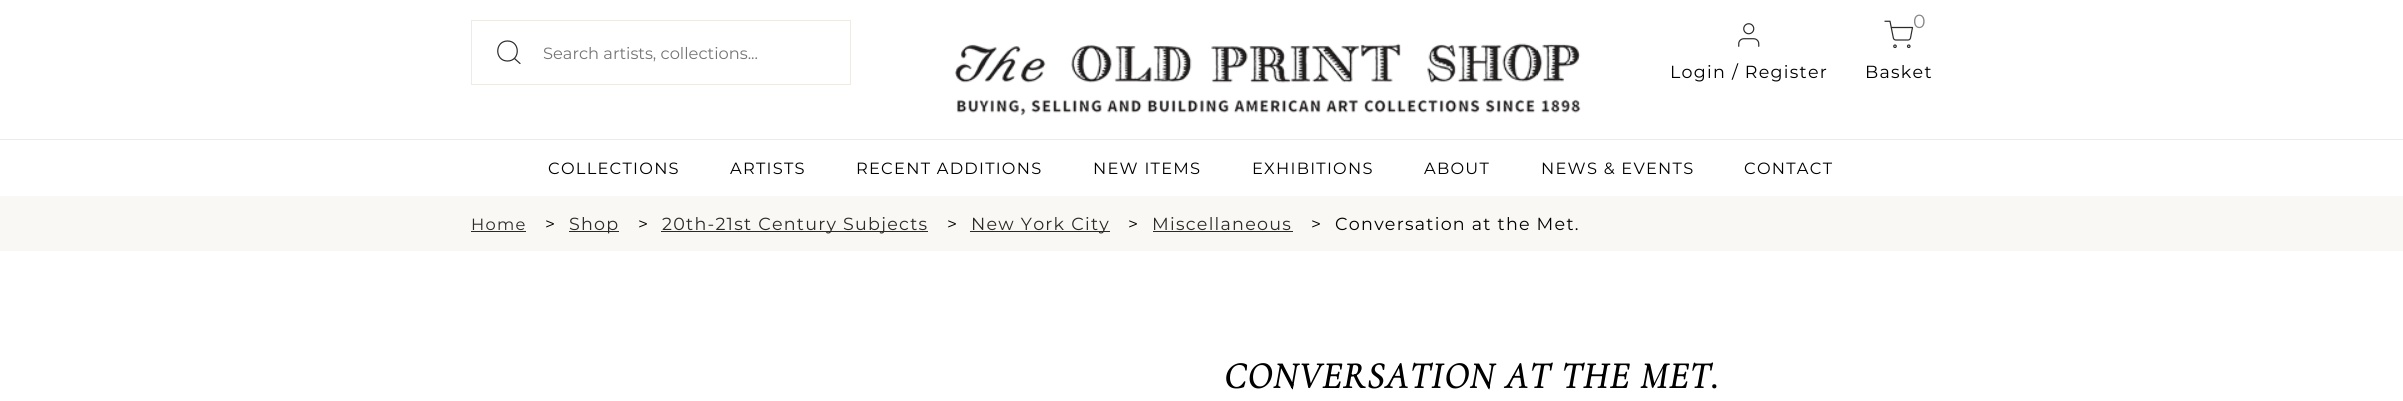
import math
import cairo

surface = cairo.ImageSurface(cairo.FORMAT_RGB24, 2403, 401)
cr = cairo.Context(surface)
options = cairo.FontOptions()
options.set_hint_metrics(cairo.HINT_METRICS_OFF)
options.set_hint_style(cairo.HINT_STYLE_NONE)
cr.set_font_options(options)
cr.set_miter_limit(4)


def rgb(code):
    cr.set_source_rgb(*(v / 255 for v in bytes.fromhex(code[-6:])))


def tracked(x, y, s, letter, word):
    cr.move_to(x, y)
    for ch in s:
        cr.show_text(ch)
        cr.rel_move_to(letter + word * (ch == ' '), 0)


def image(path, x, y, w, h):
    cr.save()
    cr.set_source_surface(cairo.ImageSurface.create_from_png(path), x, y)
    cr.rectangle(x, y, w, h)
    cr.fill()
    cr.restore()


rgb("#ffffff")
cr.paint()
cr.rectangle(471.5, 20.5, 379, 64)
rgb("#eeeae5")
cr.set_line_width(1)
cr.stroke()
cr.new_path()
cr.move_to(507.5, 61)
cr.curve_to(520.5, 61, 520.5, 41, 507.5, 41)
cr.curve_to(494.5, 41, 494.5, 61, 507.5, 61)
cr.close_path()
cr.move_to(520, 63.5)
cr.line_to(514.5, 58.5)
rgb("#2b2a29")
cr.set_line_width(1.2)
cr.set_line_cap(cairo.LINE_CAP_ROUND)
cr.set_line_join(cairo.LINE_JOIN_ROUND)
cr.stroke()
image("img/1.png", 954, 43, 627, 73)
image("img/2.png", 1738, 23, 22, 24)
image("img/3.png", 1884, 20, 30, 29)
for x, y, w, h, color in [
    (0, 139, 2403, 1, "#eeeae5"),
    (0, 196, 2403, 55, "#faf8f5"),
    (471, 231, 55, 1, "#2b2a29"),
    (569, 231, 50, 1, "#2b2a29"),
    (661, 231, 267, 1, "#2b2a29"),
    (970, 231, 140, 1, "#2b2a29"),
    (1153, 231, 140, 1, "#2b2a29"),
]:
    rgb(color)
    cr.rectangle(x, y, w, h)
    cr.fill()
cr.select_font_face("Montserrat")
cr.set_font_size(16.25)
rgb("#757575")
cr.move_to(543, 59)
cr.show_text("Search artists, collections...")
cr.set_font_size(17.5)
rgb("#000000")
tracked(1670, 78, "Login / Register", 1.25, 0)
cr.set_font_size(19)
rgb("#888888")
tracked(1913, 28, "0", 1.25, 0)
cr.set_font_size(17.5)
rgb("#000000")
tracked(1865, 78, "Basket", 1.25, 0)
cr.set_font_size(16.25)
for x, y, s in [
    (548, 174, "COLLECTIONS"),
    (730, 174, "ARTISTS"),
    (856, 174, "RECENT ADDITIONS"),
    (1093, 174, "NEW ITEMS"),
    (1252, 174, "EXHIBITIONS"),
    (1424, 174, "ABOUT"),
    (1541, 174, "NEWS & EVENTS"),
    (1744, 174, "CONTACT"),
]:
    tracked(x, y, s, 1.25, 0)
rgb("#2b2a29")
tracked(471, 230, "Home", 1.25, 0)
cr.set_font_size(17.5)
rgb("#000000")
tracked(545, 230, ">", 1.25, 0)
rgb("#2b2a29")
tracked(569, 230, "Shop", 1.25, 0)
rgb("#000000")
tracked(638, 230, ">", 1.25, 0)
rgb("#2b2a29")
tracked(662, 230, "20th-21st Century Subjects", 1.25, 0)
rgb("#000000")
tracked(947, 230, ">", 1.25, 0)
rgb("#2b2a29")
tracked(971, 230, "New York City", 1.25, 0)
rgb("#000000")
tracked(1128, 230, ">", 1.25, 0)
rgb("#2b2a29")
tracked(1152, 230, "Miscellaneous", 1.25, 0)
rgb("#000000")
tracked(1311, 230, ">", 1.25, 0)
tracked(1335, 230, "Conversation at the Met.", 1.25, 0)
cr.select_font_face("Cormorant Garamond", cairo.FONT_SLANT_ITALIC, cairo.FONT_WEIGHT_BOLD)
cr.set_font_size(37.5)
tracked(1224, 388, "CONVERSATION AT THE MET.", 1.25, 0)
surface.write_to_png("page.png")
